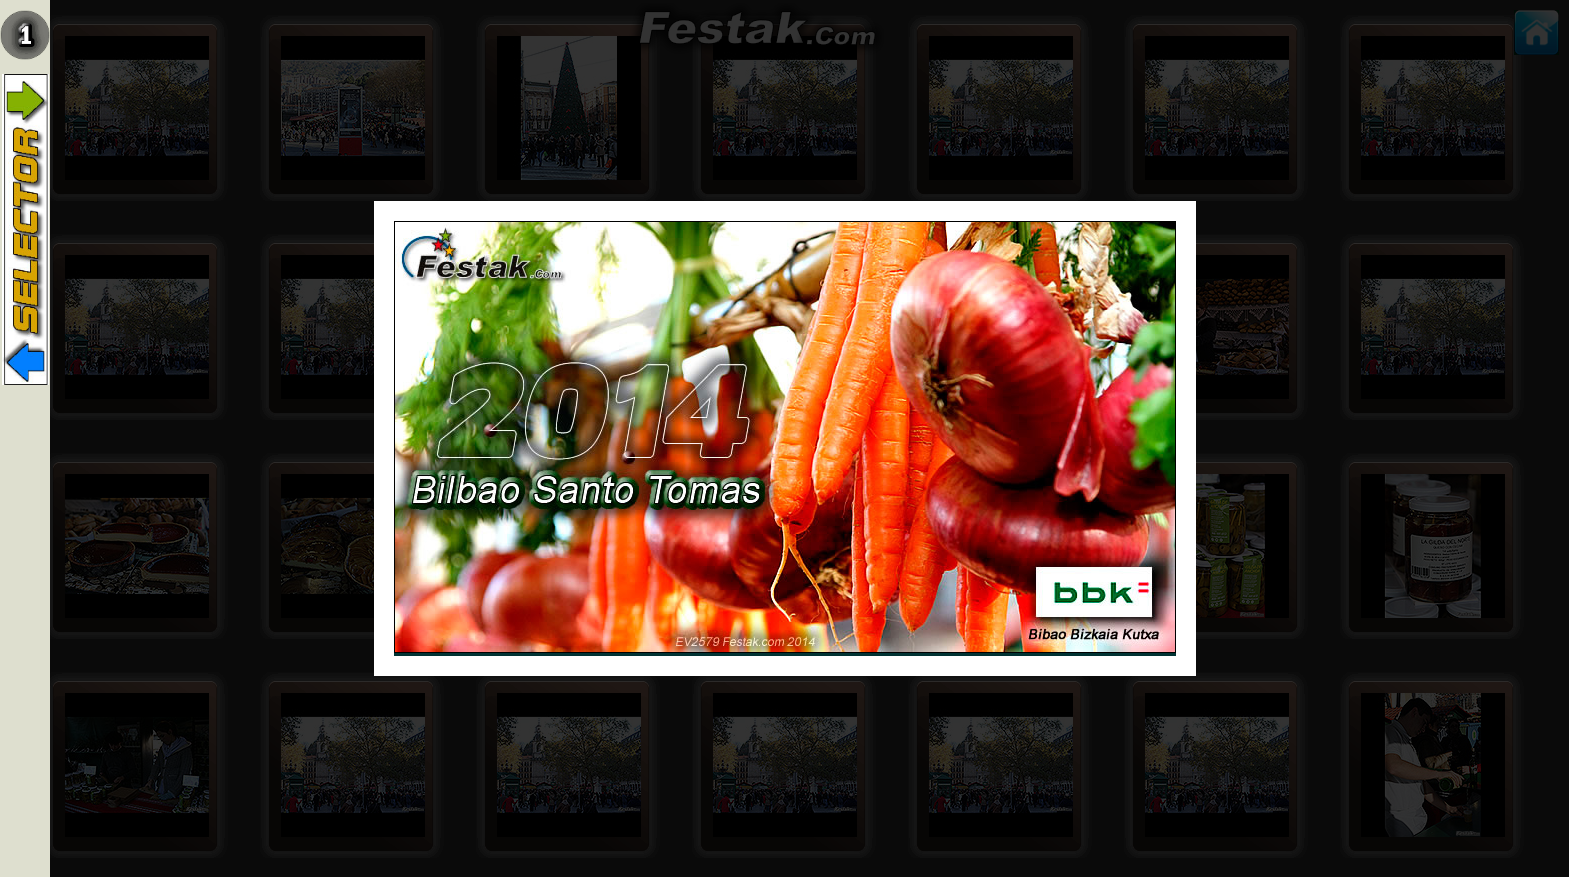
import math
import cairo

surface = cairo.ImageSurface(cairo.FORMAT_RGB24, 1569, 877)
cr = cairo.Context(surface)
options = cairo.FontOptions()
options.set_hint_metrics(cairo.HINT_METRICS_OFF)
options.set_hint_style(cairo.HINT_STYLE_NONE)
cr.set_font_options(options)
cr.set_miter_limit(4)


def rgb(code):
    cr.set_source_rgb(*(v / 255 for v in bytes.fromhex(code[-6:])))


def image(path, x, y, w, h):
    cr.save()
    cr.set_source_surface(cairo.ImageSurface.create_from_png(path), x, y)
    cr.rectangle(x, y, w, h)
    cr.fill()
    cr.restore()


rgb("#0a0a0a")
cr.paint()
rgb("#dedfcf")
cr.rectangle(0, 0, 50, 877)
cr.fill()
image("img/1.png", 0, 10, 50, 50)
image("img/2.png", 2, 74, 47, 311)
image("img/3.png", 50, 15, 178, 186)
image("img/4.png", 260, 15, 184, 186)
image("img/5.png", 476, 15, 184, 186)
image("img/8.png", 692, 15, 184, 186)
image("img/6.png", 629, 3, 255, 52)
image("img/8.png", 1340, 15, 184, 186)
image("img/7.png", 1514, 10, 45, 45)
image("img/8.png", 908, 15, 184, 186)
image("img/8.png", 1124, 15, 184, 186)
image("img/3.png", 50, 234, 178, 186)
image("img/9.png", 260, 234, 114, 186)
image("img/10.png", 1196, 234, 112, 186)
image("img/8.png", 1340, 234, 184, 186)
image("img/11.png", 50, 453, 178, 186)
image("img/12.png", 260, 453, 114, 186)
image("img/13.png", 1196, 453, 112, 186)
image("img/14.png", 1340, 453, 184, 186)
image("img/15.png", 50, 672, 178, 186)
image("img/8.png", 260, 672, 184, 186)
image("img/16.png", 476, 676, 184, 182)
image("img/16.png", 692, 676, 184, 182)
image("img/16.png", 908, 676, 184, 182)
image("img/8.png", 1124, 672, 184, 186)
image("img/17.png", 1340, 672, 184, 186)
rgb("#003333")
cr.rectangle(394, 653, 782, 3)
cr.fill()
cr.rectangle(384, 211, 802, 455)
rgb("#ffffff")
cr.set_line_width(20)
cr.stroke()
cr.rectangle(394.5, 221.5, 781, 431)
rgb("#000000")
cr.set_line_width(1)
cr.stroke()
image("img/18.png", 395, 222, 780, 430)
surface.write_to_png("page.png")
